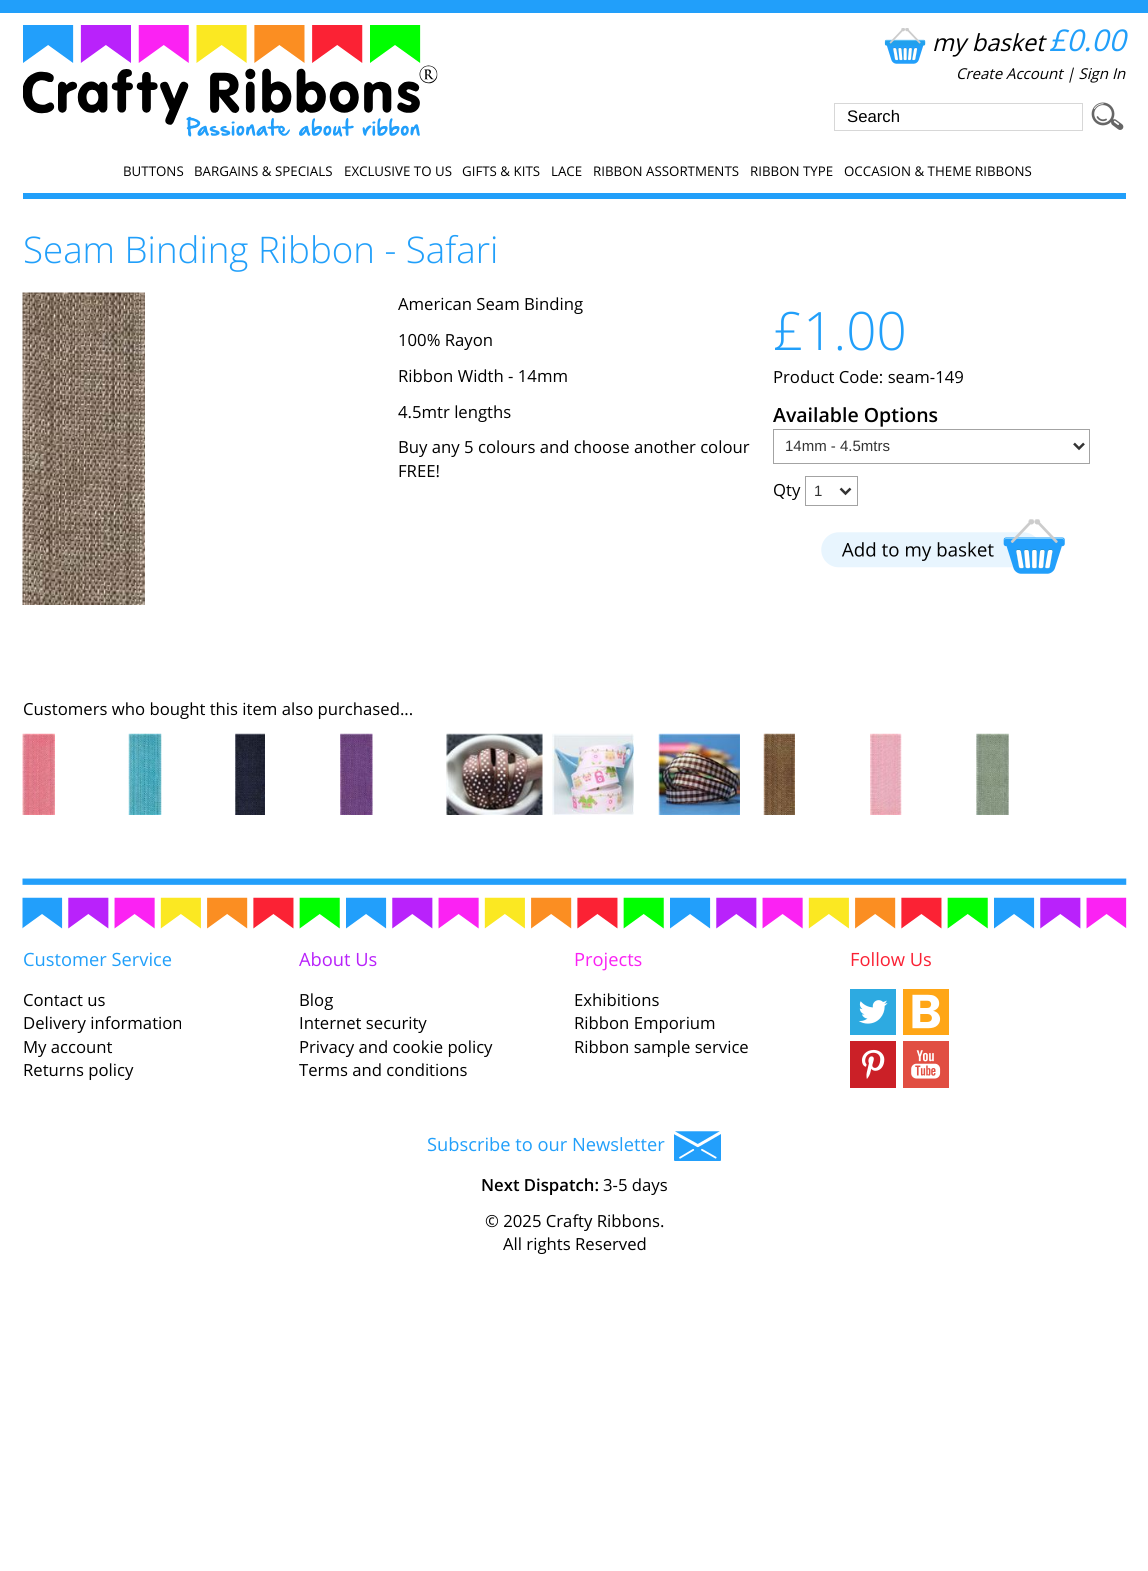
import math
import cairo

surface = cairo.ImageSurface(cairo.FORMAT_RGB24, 1148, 1571)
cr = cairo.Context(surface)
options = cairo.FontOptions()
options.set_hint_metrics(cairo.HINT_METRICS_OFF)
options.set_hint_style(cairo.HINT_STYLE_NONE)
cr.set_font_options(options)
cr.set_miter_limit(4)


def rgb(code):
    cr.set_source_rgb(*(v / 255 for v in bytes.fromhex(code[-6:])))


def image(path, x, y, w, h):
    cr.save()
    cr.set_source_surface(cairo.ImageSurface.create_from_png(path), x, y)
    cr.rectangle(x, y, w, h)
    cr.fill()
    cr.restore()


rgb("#ffffff")
cr.paint()
rgb("#219ffa")
cr.rectangle(0, 0, 1148, 13)
cr.fill()
image("img/1.png", 23, 25, 415, 112)
image("img/2.png", 884, 28, 42, 36)
cr.rectangle(834.5, 103.5, 248, 27)
rgb("#d7d7d7")
cr.set_line_width(1)
cr.stroke()
image("img/3.png", 1091, 102, 33, 28)
rgb("#219ffa")
cr.rectangle(23, 193, 1103, 6)
cr.fill()
image("img/4.png", 22, 292, 123, 313)
cr.rectangle(773.5, 429.5, 316, 34)
rgb("#a3a3a3")
cr.stroke()
cr.new_path()
cr.move_to(1074, 443.5)
cr.line_to(1079, 448.5)
cr.line_to(1084, 443.5)
rgb("#333333")
cr.set_line_width(2.5)
cr.stroke()
cr.rectangle(805.5, 476.5, 52, 29)
rgb("#a3a3a3")
cr.set_line_width(1)
cr.stroke()
cr.new_path()
cr.move_to(840.5, 488.5)
cr.line_to(845.5, 493.5)
cr.line_to(850.5, 488.5)
rgb("#333333")
cr.set_line_width(2.5)
cr.stroke()
image("img/5.png", 821, 519, 244, 55)
image("img/6.png", 22, 733, 33, 82)
image("img/7.png", 128, 733, 34, 82)
image("img/8.png", 235, 733, 30, 82)
image("img/9.png", 340, 733, 33, 82)
image("img/10.png", 446, 733, 97, 82)
image("img/11.png", 552, 733, 82, 82)
image("img/12.png", 658, 733, 82, 82)
image("img/13.png", 763, 733, 32, 82)
image("img/14.png", 870, 733, 32, 82)
image("img/15.png", 976, 733, 33, 82)
image("img/16.png", 22, 878, 1105, 51)
image("img/17.png", 850, 989, 46, 46)
image("img/18.png", 903, 989, 46, 46)
image("img/19.png", 850, 1041, 46, 47)
image("img/20.png", 903, 1041, 46, 47)
image("img/21.png", 674, 1131, 47, 30)
cr.select_font_face("Open Sans", cairo.FONT_SLANT_ITALIC)
cr.set_font_size(23.5)
rgb("#000000")
cr.move_to(932, 51)
cr.show_text("my basket")
cr.set_font_size(30)
rgb("#219ffa")
cr.move_to(1049, 51)
cr.show_text("£0.00")
cr.set_font_size(15)
rgb("#000000")
cr.move_to(956, 79)
cr.show_text("Create Account | Sign In")
cr.select_font_face("Liberation Sans")
cr.set_font_size(16.7)
cr.move_to(847, 122)
cr.show_text("Search")
cr.select_font_face("Open Sans")
cr.set_font_size(13.3)
for x, y, s in [
    (123, 176, "BUTTONS"),
    (194, 176, "BARGAINS & SPECIALS"),
    (344, 176, "EXCLUSIVE TO US"),
    (462, 176, "GIFTS & KITS"),
    (551, 176, "LACE"),
    (593, 176, "RIBBON ASSORTMENTS"),
    (750, 176, "RIBBON TYPE"),
    (844, 176, "OCCASION & THEME RIBBONS"),
]:
    cr.move_to(x, y)
    cr.show_text(s)
cr.select_font_face("Open Sans Light")
cr.set_font_size(36.7)
rgb("#219ffa")
cr.move_to(23, 263)
cr.show_text("Seam Binding Ribbon - Safari")
cr.select_font_face("Open Sans")
cr.set_font_size(16.7)
rgb("#000000")
for x, y, s in [
    (398, 310, "American Seam Binding"),
    (398, 346, "100% Rayon"),
    (398, 382, "Ribbon Width - 14mm"),
    (398, 418, "4.5mtr lengths"),
    (398, 453, "Buy any 5 colours and choose another colour"),
    (398, 477, "FREE!"),
]:
    cr.move_to(x, y)
    cr.show_text(s)
cr.select_font_face("Open Sans Light")
cr.set_font_size(53)
rgb("#219ffa")
cr.move_to(773, 350)
cr.show_text("£1.00")
cr.select_font_face("Open Sans")
cr.set_font_size(16.7)
rgb("#000000")
cr.move_to(773, 383)
cr.show_text("Product Code: seam-149")
cr.select_font_face("Open Sans SemiBold")
cr.set_font_size(19.5)
cr.move_to(773, 422)
cr.show_text("Available Options")
cr.select_font_face("Liberation Sans")
cr.set_font_size(15)
rgb("#333333")
cr.move_to(785, 451)
cr.show_text("14mm - 4.5mtrs")
cr.select_font_face("Open Sans")
cr.set_font_size(16.7)
rgb("#000000")
cr.move_to(773, 496)
cr.show_text("Qty")
cr.select_font_face("Liberation Sans")
cr.set_font_size(15)
rgb("#333333")
cr.move_to(814, 496)
cr.show_text("1")
cr.select_font_face("Open Sans")
cr.set_font_size(16.7)
rgb("#000000")
cr.move_to(23, 715)
cr.show_text("Customers who bought this item also purchased...")
cr.set_font_size(18.3)
rgb("#219ffa")
cr.move_to(23, 966)
cr.show_text("Customer Service")
cr.set_font_size(16.7)
rgb("#000000")
for x, y, s in [
    (23, 1006, "Contact us"),
    (23, 1029, "Delivery information"),
    (23, 1053, "My account"),
    (23, 1076, "Returns policy"),
]:
    cr.move_to(x, y)
    cr.show_text(s)
cr.set_font_size(18.3)
rgb("#b821fa")
cr.move_to(299, 966)
cr.show_text("About Us")
cr.set_font_size(16.7)
rgb("#000000")
for x, y, s in [
    (299, 1006, "Blog"),
    (299, 1029, "Internet security"),
    (299, 1053, "Privacy and cookie policy"),
    (299, 1076, "Terms and conditions"),
]:
    cr.move_to(x, y)
    cr.show_text(s)
cr.set_font_size(18.3)
rgb("#fa21f3")
cr.move_to(574, 966)
cr.show_text("Projects")
cr.set_font_size(16.7)
rgb("#000000")
for x, y, s in [
    (574, 1006, "Exhibitions"),
    (574, 1029, "Ribbon Emporium"),
    (574, 1053, "Ribbon sample service"),
]:
    cr.move_to(x, y)
    cr.show_text(s)
cr.set_font_size(18.3)
rgb("#fa2134")
cr.move_to(850, 966)
cr.show_text("Follow Us")
rgb("#219ffa")
cr.move_to(427, 1151)
cr.show_text("Subscribe to our Newsletter")
cr.select_font_face("Open Sans SemiBold")
cr.set_font_size(16.7)
rgb("#000000")
cr.move_to(481, 1191)
cr.show_text("Next Dispatch:")
cr.select_font_face("Open Sans")
for x, y, s in [
    (603, 1191, "3-5 days"),
    (485, 1227, "© 2025 Crafty Ribbons."),
    (503, 1250, "All rights Reserved"),
]:
    cr.move_to(x, y)
    cr.show_text(s)
surface.write_to_png("page.png")
